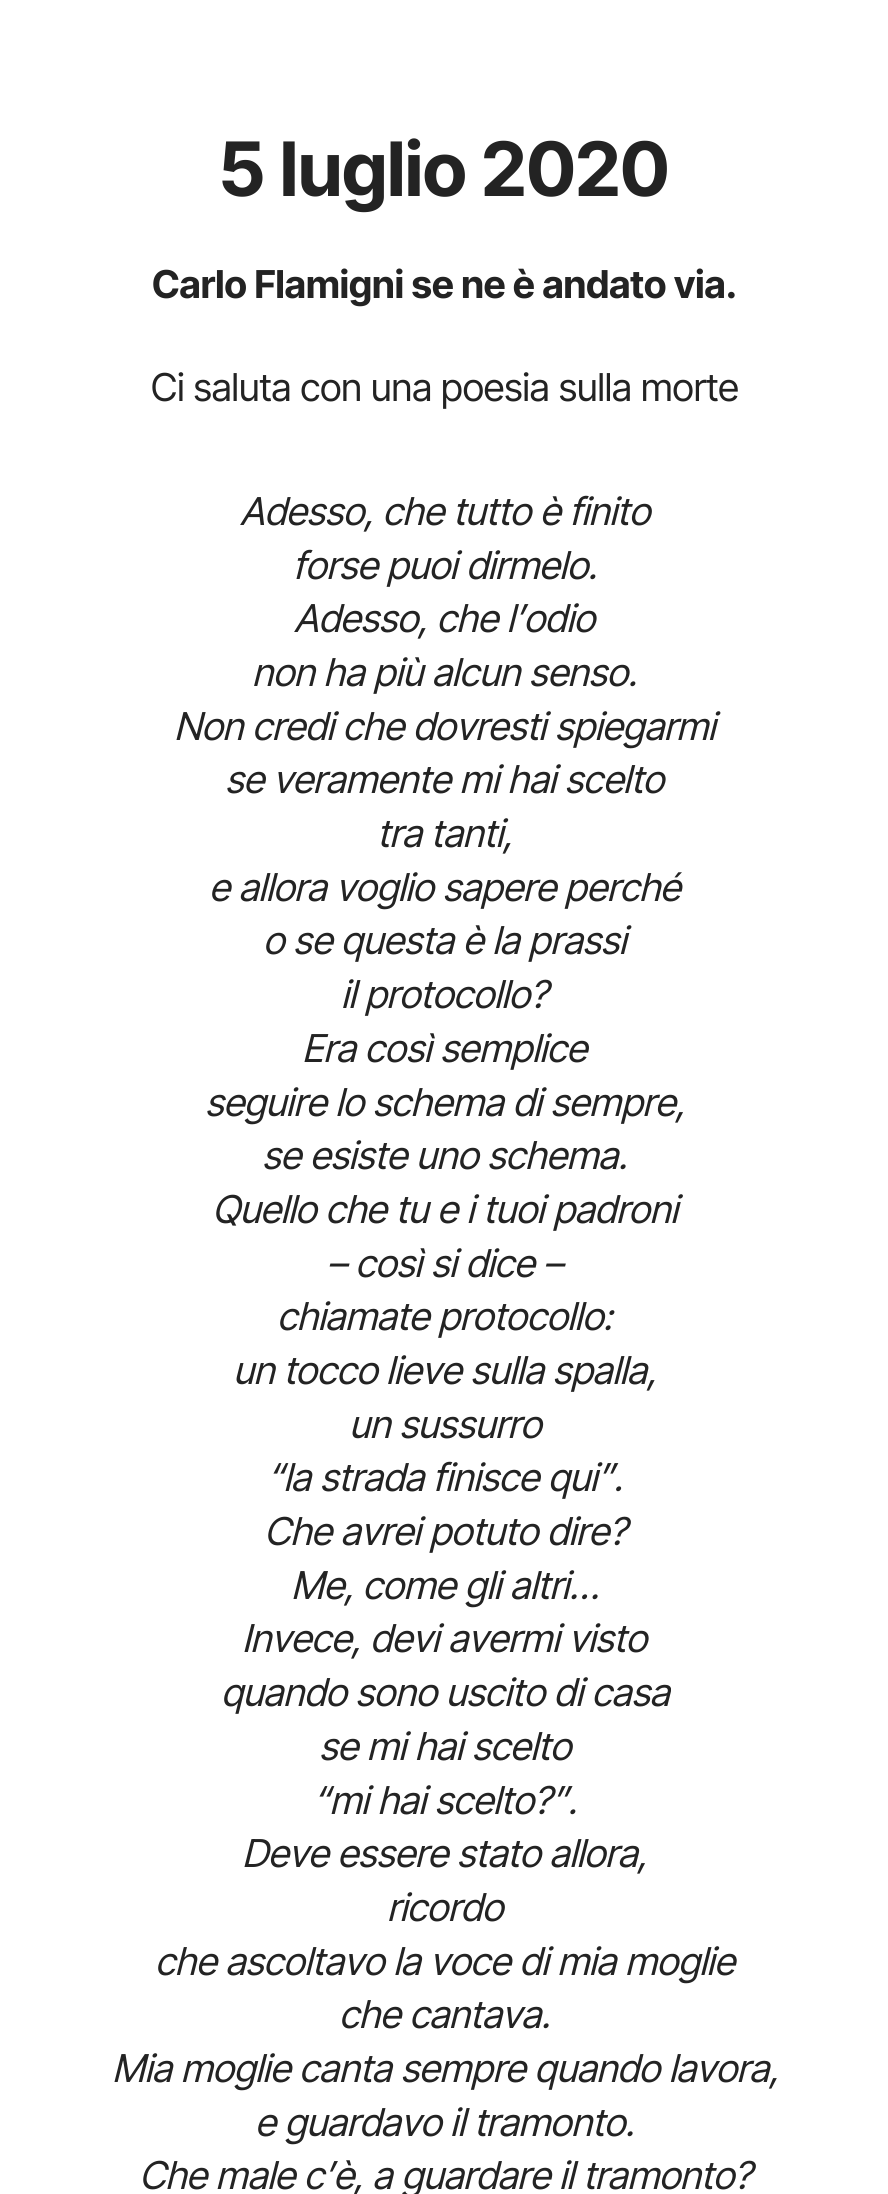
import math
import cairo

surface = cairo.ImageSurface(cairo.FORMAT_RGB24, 888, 2194)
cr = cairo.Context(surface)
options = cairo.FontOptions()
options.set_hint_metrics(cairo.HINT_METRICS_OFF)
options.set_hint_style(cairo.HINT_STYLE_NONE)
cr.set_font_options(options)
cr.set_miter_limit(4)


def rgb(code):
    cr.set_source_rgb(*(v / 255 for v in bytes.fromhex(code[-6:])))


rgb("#ffffff")
cr.paint()
cr.select_font_face("Inter Tight", cairo.FONT_SLANT_NORMAL, cairo.FONT_WEIGHT_BOLD)
cr.set_font_size(75)
rgb("#232323")
cr.move_to(219, 196)
cr.show_text("5 luglio 2020")
cr.set_font_size(38.4)
cr.move_to(152, 298)
cr.show_text("Carlo Flamigni se ne è andato via.")
cr.select_font_face("Inter Tight")
cr.move_to(151, 401)
cr.show_text("Ci saluta con una poesia sulla morte")
cr.select_font_face("Inter Tight", cairo.FONT_SLANT_ITALIC)
for x, y, s in [
    (240, 525, "Adesso, che tutto è finito"),
    (293, 579, "forse puoi dirmelo."),
    (294, 632, "Adesso, che l’odio"),
    (252, 686, "non ha più alcun senso."),
    (174, 740, "Non credi che dovresti spiegarmi"),
    (225, 793, "se veramente mi hai scelto"),
    (377, 847, "tra tanti,"),
    (209, 901, "e allora voglio sapere perché"),
    (263, 954, "o se questa è la prassi"),
    (341, 1008, "il protocollo?"),
    (302, 1062, "Era così semplice"),
    (205, 1116, "seguire lo schema di sempre,"),
    (262, 1169, "se esiste uno schema."),
    (212, 1223, "Quello che tu e i tuoi padroni"),
    (327, 1277, "– così si dice –"),
    (277, 1330, "chiamate protocollo:"),
    (233, 1384, "un tocco lieve sulla spalla,"),
    (349, 1438, "un sussurro"),
    (267, 1491, "“la strada finisce qui”."),
    (264, 1545, "Che avrei potuto dire?"),
    (291, 1599, "Me, come gli altri…"),
    (242, 1652, "Invece, devi avermi visto"),
    (221, 1706, "quando sono uscito di casa"),
    (319, 1760, "se mi hai scelto"),
    (313, 1814, "“mi hai scelto?”."),
    (242, 1867, "Deve essere stato allora,"),
    (387, 1921, "ricordo"),
    (155, 1975, "che ascoltavo la voce di mia moglie"),
    (339, 2028, "che cantava."),
    (112, 2082, "Mia moglie canta sempre quando lavora,"),
    (255, 2136, "e guardavo il tramonto."),
    (139, 2189, "Che male c’è, a guardare il tramonto?"),
]:
    cr.move_to(x, y)
    cr.show_text(s)
surface.write_to_png("page.png")
